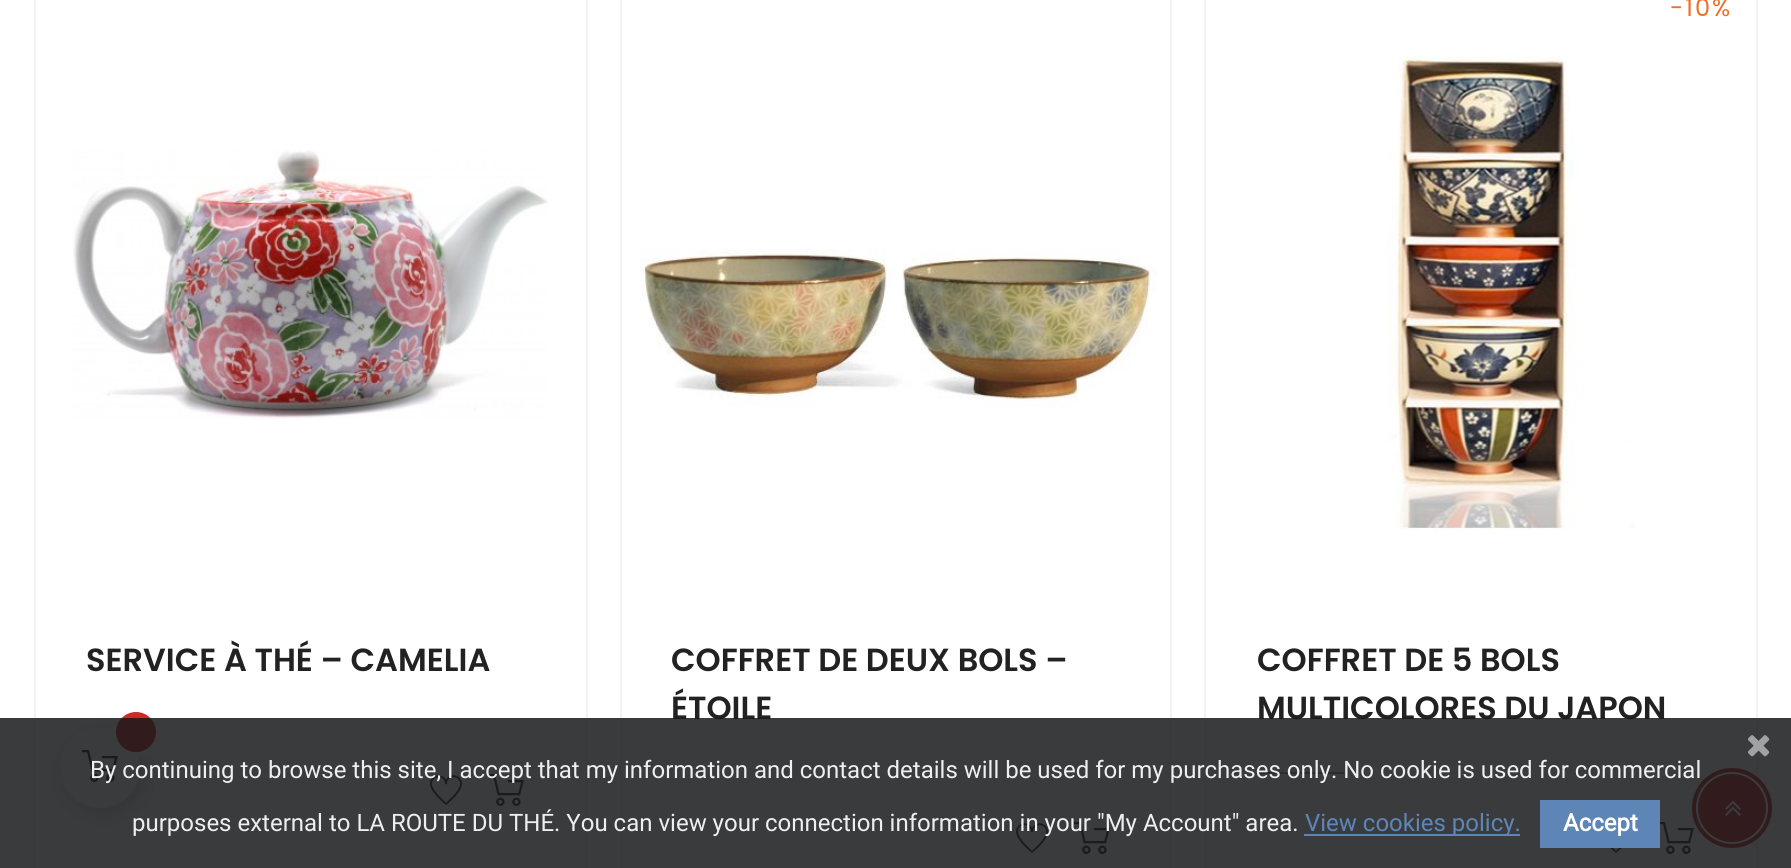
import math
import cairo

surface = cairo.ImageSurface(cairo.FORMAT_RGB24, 1791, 868)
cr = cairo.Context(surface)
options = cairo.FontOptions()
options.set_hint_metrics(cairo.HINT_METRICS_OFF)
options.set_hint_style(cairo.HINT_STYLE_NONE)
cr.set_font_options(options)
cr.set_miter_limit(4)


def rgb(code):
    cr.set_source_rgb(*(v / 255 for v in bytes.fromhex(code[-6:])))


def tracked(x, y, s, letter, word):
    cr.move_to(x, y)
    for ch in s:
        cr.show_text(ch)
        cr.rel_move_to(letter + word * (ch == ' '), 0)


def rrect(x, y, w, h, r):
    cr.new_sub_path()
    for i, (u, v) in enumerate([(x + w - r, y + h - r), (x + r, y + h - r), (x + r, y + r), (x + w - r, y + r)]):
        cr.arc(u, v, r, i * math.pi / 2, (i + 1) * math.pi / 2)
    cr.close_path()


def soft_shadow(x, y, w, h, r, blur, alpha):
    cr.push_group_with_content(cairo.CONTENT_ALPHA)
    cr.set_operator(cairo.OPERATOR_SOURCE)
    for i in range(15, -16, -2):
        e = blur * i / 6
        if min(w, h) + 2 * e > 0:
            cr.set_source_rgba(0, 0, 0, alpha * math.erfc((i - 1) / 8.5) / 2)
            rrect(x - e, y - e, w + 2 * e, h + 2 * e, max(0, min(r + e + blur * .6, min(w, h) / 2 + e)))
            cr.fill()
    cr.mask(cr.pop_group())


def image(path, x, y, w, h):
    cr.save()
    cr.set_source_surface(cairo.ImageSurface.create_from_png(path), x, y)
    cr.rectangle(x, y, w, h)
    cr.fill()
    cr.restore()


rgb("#ffffff")
cr.paint()
cr.rectangle(35, -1, 552, 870)
rgb("#f2f2f2")
cr.stroke()
image("img/1.png", 73, 150, 475, 269)
image("img/2.png", 430, 775, 32, 30)
image("img/3.png", 488, 774, 36, 32)
cr.rectangle(621, -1, 550, 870)
cr.stroke()
image("img/4.png", 640, 249, 517, 158)
image("img/2.png", 1016, 823, 32, 30)
image("img/3.png", 1074, 822, 36, 32)
cr.rectangle(1205, -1, 552, 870)
cr.stroke()
rgb("#999999")
cr.rectangle(1256, 772, 88, 2)
cr.fill()
image("img/5.png", 1610, 848, 12, 5)
image("img/6.png", 1660, 822, 34, 32)
image("img/7.png", 1387, 56, 248, 474)
rgb("#ce2929")
cr.arc(1732, 808, 40, 0, 2 * math.pi)
cr.fill()
cr.arc(1732, 808, 35, 0, 2 * math.pi)
rgb("#ffffff")
cr.stroke()
image("img/8.png", 1725, 800, 16, 16)
rgb("#000000")
soft_shadow(64, 734, 80, 80, 40, 10, 0.15)
rgb("#ffffff")
cr.arc(100, 768, 40, 0, 2 * math.pi)
cr.fill()
image("img/9.png", 82, 750, 36, 32)
cr.arc(136, 732, 22, 0, 2 * math.pi)
cr.set_line_width(4)
cr.stroke()
rgb("#ce2929")
cr.arc(136, 732, 20, 0, 2 * math.pi)
cr.fill()
cr.select_font_face("Poppins SemiBold")
cr.set_font_size(32)
rgb("#222222")
for x, y, s in [
    (86, 671, "SERVICE À THÉ – CAMELIA"),
    (671, 671, "COFFRET DE DEUX BOLS –"),
    (671, 719, "ÉTOILE"),
]:
    cr.move_to(x, y)
    cr.show_text(s)
cr.select_font_face("Poppins")
cr.set_font_size(24)
rgb("#eb7025")
tracked(1670, 16, "-10%", 2, 0)
cr.select_font_face("Poppins SemiBold")
cr.set_font_size(32)
rgb("#222222")
cr.move_to(1257, 671)
cr.show_text("COFFRET DE 5 BOLS")
cr.move_to(1257, 719)
cr.show_text("MULTICOLORES DU JAPON")
cr.set_source_rgba(0.09, 0.098, 0.11, 0.85)
cr.rectangle(0, 718, 1791, 150)
cr.fill()
image("img/10.png", 1748, 735, 22, 22)
cr.select_font_face("Roboto")
cr.set_font_size(24)
rgb("#efefef")
cr.move_to(90, 778)
cr.show_text("By continuing to browse this site, I accept that my information and contact details will be used for my purchases only. No cookie is used for commercial")
cr.move_to(132, 831)
cr.show_text("purposes external to LA ROUTE DU THÉ. You can view your connection information in your \"My Account\" area.")
rgb("#5d86b6")
cr.rectangle(1304, 834, 216, 2)
cr.fill()
cr.move_to(1305, 831)
cr.show_text("View cookies policy.")
cr.rectangle(1540, 800, 120, 48)
cr.fill()
cr.select_font_face("Roboto", cairo.FONT_SLANT_NORMAL, cairo.FONT_WEIGHT_BOLD)
rgb("#ffffff")
cr.move_to(1563, 831)
cr.show_text("Accept")
surface.write_to_png("page.png")
